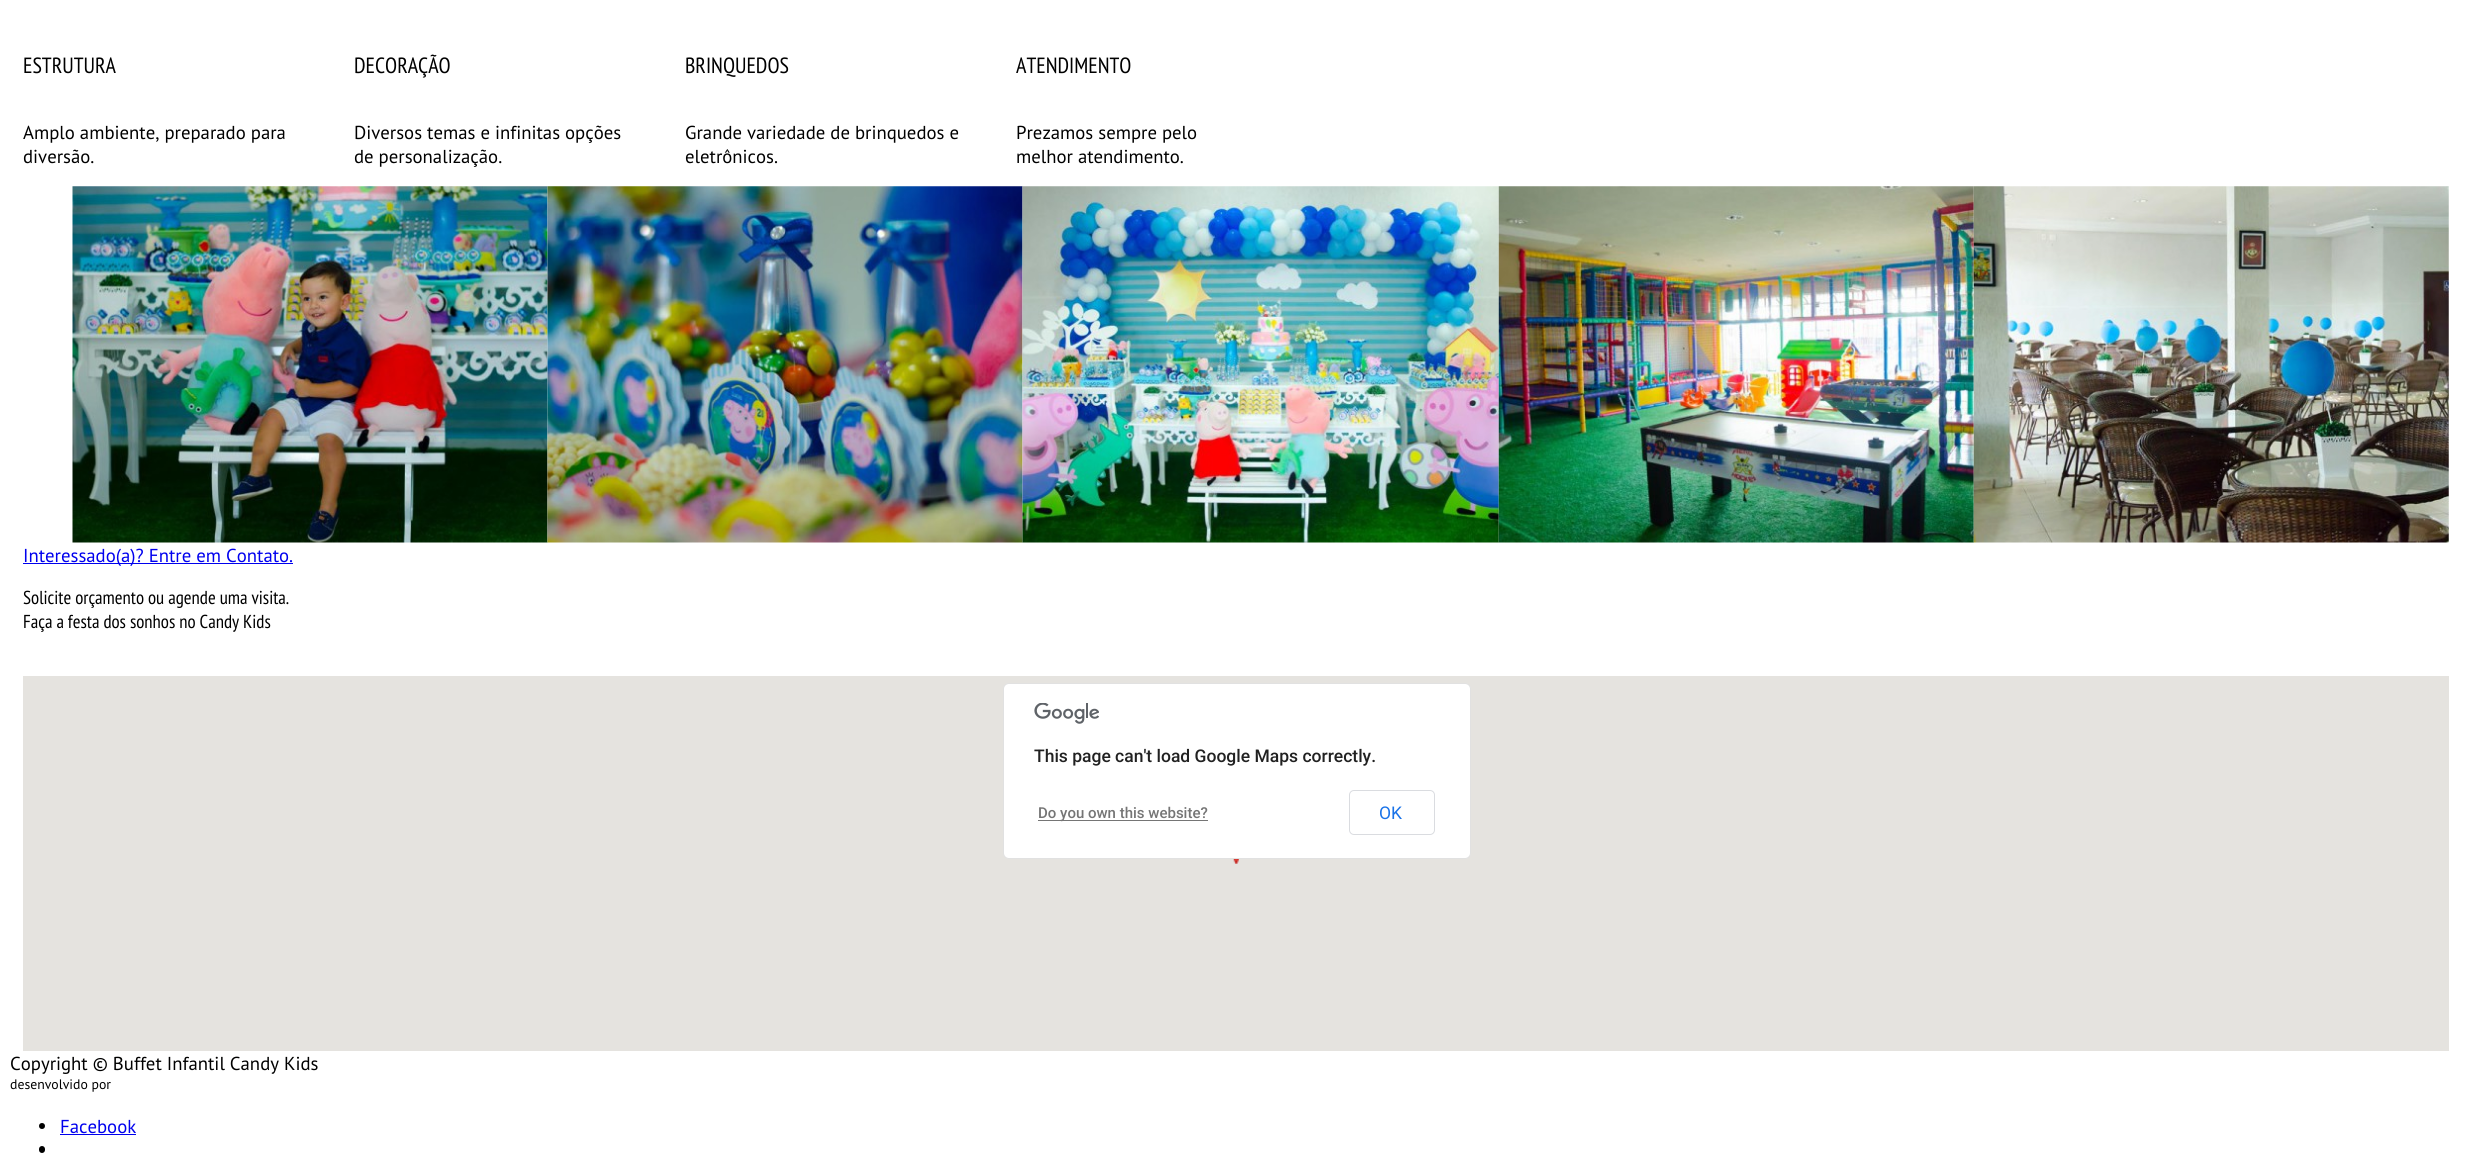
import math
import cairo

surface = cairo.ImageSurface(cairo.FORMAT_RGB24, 2471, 1153)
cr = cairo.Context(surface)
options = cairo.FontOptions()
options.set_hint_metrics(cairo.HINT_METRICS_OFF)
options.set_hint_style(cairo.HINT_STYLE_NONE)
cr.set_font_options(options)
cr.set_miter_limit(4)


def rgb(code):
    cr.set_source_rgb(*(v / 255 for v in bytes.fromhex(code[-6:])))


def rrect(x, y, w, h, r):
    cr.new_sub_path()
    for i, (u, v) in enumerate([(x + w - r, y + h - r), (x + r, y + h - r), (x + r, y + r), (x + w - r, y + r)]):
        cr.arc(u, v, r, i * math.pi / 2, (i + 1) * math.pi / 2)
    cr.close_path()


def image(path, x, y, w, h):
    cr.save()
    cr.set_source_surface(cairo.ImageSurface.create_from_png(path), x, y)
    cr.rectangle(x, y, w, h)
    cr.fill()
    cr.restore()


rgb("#ffffff")
cr.paint()
image("img/1.png", 72, 186, 476, 357)
image("img/2.png", 547, 186, 476, 357)
image("img/3.png", 1022, 186, 477, 357)
image("img/4.png", 1498, 186, 476, 357)
image("img/5.png", 1973, 186, 476, 357)
rgb("#0000ee")
cr.rectangle(23, 563, 270, 1)
cr.fill()
rgb("#e5e3df")
cr.rectangle(23, 676, 2426, 375)
cr.fill()
image("img/6.png", 1233, 859, 6, 5)
rgb("#ffffff")
rrect(1003, 683, 468, 176, 6)
cr.fill()
rrect(1003.5, 683.5, 467, 175, 5.5)
cr.set_source_rgba(0, 0, 0, 0.12)
cr.set_line_width(1)
cr.stroke()
image("img/7.png", 1034, 703, 65, 21)
rgb("#757575")
cr.rectangle(1038, 820, 170, 1)
cr.fill()
rrect(1349.5, 790.5, 85, 44, 4.5)
rgb("#dadce0")
cr.stroke()
rgb("#000000")
cr.arc(42, 1126, 3, 0, 2 * math.pi)
cr.fill()
rgb("#0000ee")
cr.rectangle(60, 1134, 76, 1)
cr.fill()
rgb("#000000")
rrect(39, 1146, 6, 7, 3)
cr.fill()
cr.select_font_face("PT Sans Narrow")
cr.set_font_size(22)
cr.move_to(23, 73)
cr.show_text("ESTRUTURA")
cr.select_font_face("PT Sans")
cr.set_font_size(18.75)
cr.move_to(23, 139)
cr.show_text("Amplo ambiente, preparado para")
cr.move_to(23, 163)
cr.show_text("diversão.")
cr.select_font_face("PT Sans Narrow")
cr.set_font_size(22)
cr.move_to(354, 73)
cr.show_text("DECORAÇÃO")
cr.select_font_face("PT Sans")
cr.set_font_size(18.75)
cr.move_to(354, 139)
cr.show_text("Diversos temas e infinitas opções")
cr.move_to(354, 163)
cr.show_text("de personalização.")
cr.select_font_face("PT Sans Narrow")
cr.set_font_size(22)
cr.move_to(685, 73)
cr.show_text("BRINQUEDOS")
cr.select_font_face("PT Sans")
cr.set_font_size(18.75)
cr.move_to(685, 139)
cr.show_text("Grande variedade de brinquedos e")
cr.move_to(685, 163)
cr.show_text("eletrônicos.")
cr.select_font_face("PT Sans Narrow")
cr.set_font_size(22)
cr.move_to(1016, 73)
cr.show_text("ATENDIMENTO")
cr.select_font_face("PT Sans")
cr.set_font_size(18.75)
cr.move_to(1016, 139)
cr.show_text("Prezamos sempre pelo")
cr.move_to(1016, 163)
cr.show_text("melhor atendimento.")
rgb("#0000ee")
cr.move_to(23, 562)
cr.show_text("Interessado(a)? Entre em Contato.")
cr.select_font_face("PT Sans Narrow")
rgb("#000000")
cr.move_to(23, 604)
cr.show_text("Solicite orçamento ou agende uma visita.")
cr.move_to(23, 628)
cr.show_text("Faça a festa dos sonhos no Candy Kids")
cr.select_font_face("Roboto Medium")
cr.set_font_size(17.5)
rgb("#212121")
cr.move_to(1034, 762)
cr.show_text("This page can't load Google Maps correctly.")
cr.set_font_size(15)
rgb("#757575")
cr.move_to(1038, 818)
cr.show_text("Do you own this website?")
cr.select_font_face("Roboto")
cr.set_font_size(17.5)
rgb("#1a73e8")
cr.move_to(1379, 819)
cr.show_text("OK")
cr.select_font_face("PT Sans")
cr.set_font_size(18.75)
rgb("#000000")
cr.move_to(10, 1070)
cr.show_text("Copyright © Buffet Infantil Candy Kids")
cr.set_font_size(13.75)
cr.move_to(10, 1089)
cr.show_text("desenvolvido por")
cr.set_font_size(18.75)
rgb("#0000ee")
cr.move_to(60, 1133)
cr.show_text("Facebook")
surface.write_to_png("page.png")
